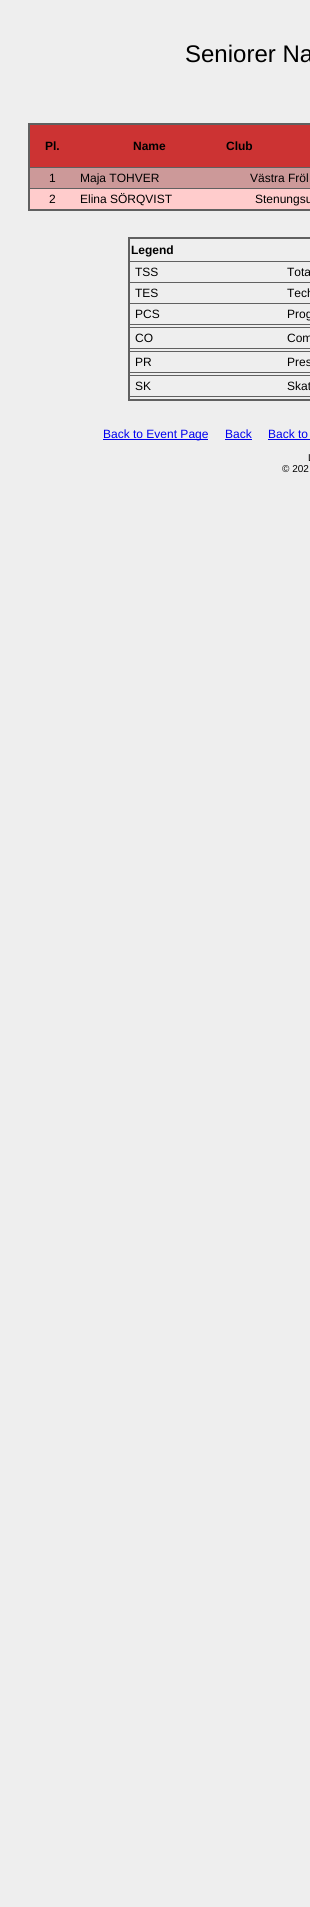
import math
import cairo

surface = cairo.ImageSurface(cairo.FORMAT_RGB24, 310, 1907)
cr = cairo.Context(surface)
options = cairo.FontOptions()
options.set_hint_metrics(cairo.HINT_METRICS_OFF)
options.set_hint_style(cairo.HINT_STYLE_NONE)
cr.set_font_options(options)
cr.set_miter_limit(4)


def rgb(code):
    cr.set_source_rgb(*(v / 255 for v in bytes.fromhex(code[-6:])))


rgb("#eeeeee")
cr.paint()
for x, y, w, h, color in [
    (28, 123, 282, 88, "#606060"),
    (30, 125, 280, 42, "#cc3333"),
    (30, 168, 280, 20, "#cc9999"),
    (30, 189, 280, 20, "#ffcccc"),
    (128, 237, 182, 164, "#606060"),
    (130, 239, 180, 22, "#eeeeee"),
    (130, 262, 180, 20, "#eeeeee"),
    (130, 283, 180, 20, "#eeeeee"),
    (130, 304, 180, 20, "#eeeeee"),
    (130, 325, 180, 2, "#eeeeee"),
    (130, 328, 180, 20, "#eeeeee"),
    (130, 349, 180, 2, "#eeeeee"),
    (130, 352, 180, 20, "#eeeeee"),
    (130, 373, 180, 2, "#eeeeee"),
    (130, 376, 180, 20, "#eeeeee"),
    (130, 397, 180, 2, "#eeeeee"),
    (103, 439, 105, 1, "#0000ee"),
    (225, 439, 27, 1, "#0000ee"),
    (268, 439, 42, 1, "#0000ee"),
]:
    rgb(color)
    cr.rectangle(x, y, w, h)
    cr.fill()
cr.select_font_face("Liberation Sans")
cr.set_font_size(24)
rgb("#000000")
cr.move_to(185, 62)
cr.show_text("Seniorer Na")
cr.select_font_face("Liberation Sans", cairo.FONT_SLANT_NORMAL, cairo.FONT_WEIGHT_BOLD)
cr.set_font_size(12)
for x, y, s in [
    (45, 150, "Pl."),
    (133, 150, "Name"),
    (226, 150, "Club"),
]:
    cr.move_to(x, y)
    cr.show_text(s)
cr.select_font_face("Liberation Sans")
for x, y, s in [
    (49, 182, "1"),
    (80, 182, "Maja TOHVER"),
    (250, 182, "Västra Fröl"),
    (49, 203, "2"),
    (80, 203, "Elina SÖRQVIST"),
    (255, 203, "Stenungsu"),
]:
    cr.move_to(x, y)
    cr.show_text(s)
cr.select_font_face("Liberation Sans", cairo.FONT_SLANT_NORMAL, cairo.FONT_WEIGHT_BOLD)
cr.move_to(131, 254)
cr.show_text("Legend")
cr.select_font_face("Liberation Sans")
for x, y, s in [
    (135, 276, "TSS"),
    (287, 276, "Tota"),
    (135, 297, "TES"),
    (287, 297, "Tech"),
    (135, 318, "PCS"),
    (287, 318, "Prog"),
    (135, 342, "CO"),
    (287, 342, "Com"),
    (135, 366, "PR"),
    (287, 366, "Pres"),
    (135, 390, "SK"),
    (287, 390, "Skat"),
]:
    cr.move_to(x, y)
    cr.show_text(s)
rgb("#0000ee")
for x, y, s in [
    (103, 438, "Back to Event Page"),
    (225, 438, "Back"),
    (268, 438, "Back to"),
]:
    cr.move_to(x, y)
    cr.show_text(s)
cr.set_font_size(10)
rgb("#000000")
cr.move_to(308, 461)
cr.show_text("L")
cr.move_to(282, 472)
cr.show_text("© 202")
surface.write_to_png("page.png")
